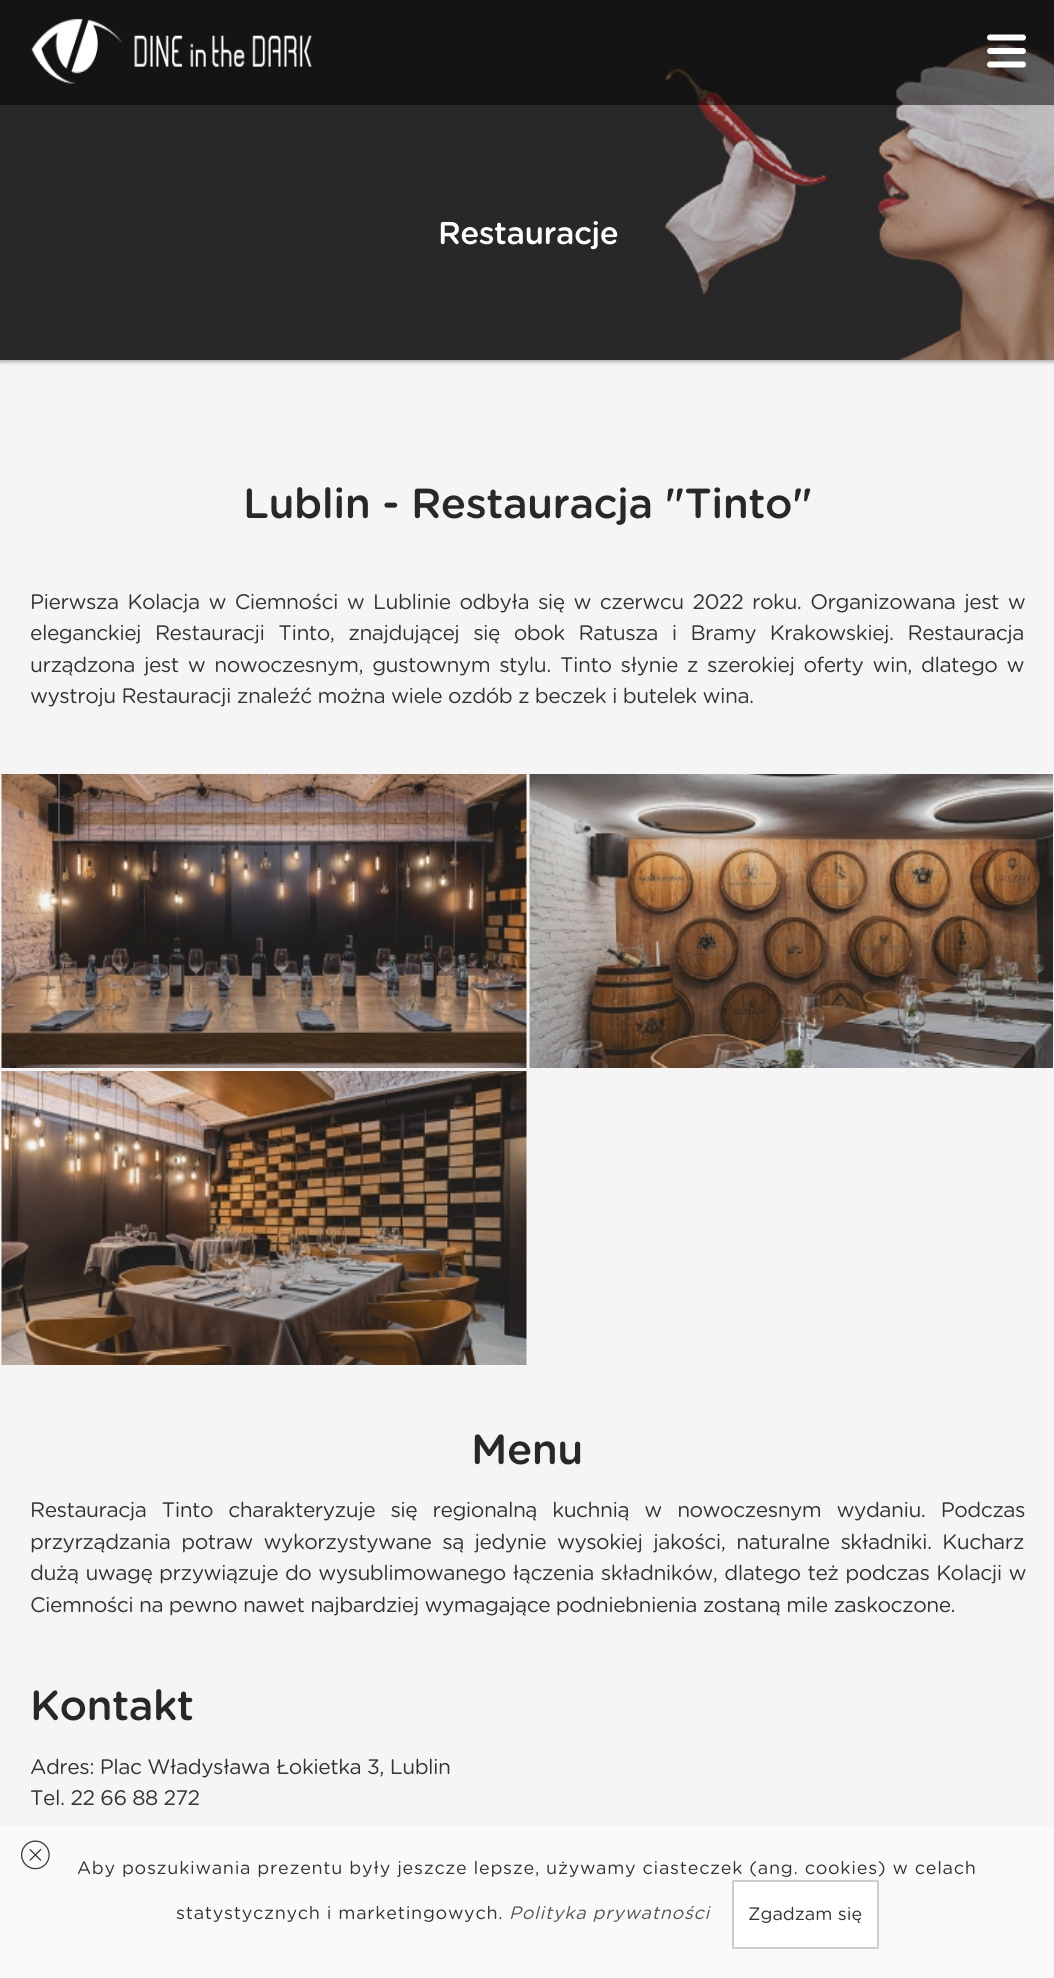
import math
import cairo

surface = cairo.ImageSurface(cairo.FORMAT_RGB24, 1054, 1978)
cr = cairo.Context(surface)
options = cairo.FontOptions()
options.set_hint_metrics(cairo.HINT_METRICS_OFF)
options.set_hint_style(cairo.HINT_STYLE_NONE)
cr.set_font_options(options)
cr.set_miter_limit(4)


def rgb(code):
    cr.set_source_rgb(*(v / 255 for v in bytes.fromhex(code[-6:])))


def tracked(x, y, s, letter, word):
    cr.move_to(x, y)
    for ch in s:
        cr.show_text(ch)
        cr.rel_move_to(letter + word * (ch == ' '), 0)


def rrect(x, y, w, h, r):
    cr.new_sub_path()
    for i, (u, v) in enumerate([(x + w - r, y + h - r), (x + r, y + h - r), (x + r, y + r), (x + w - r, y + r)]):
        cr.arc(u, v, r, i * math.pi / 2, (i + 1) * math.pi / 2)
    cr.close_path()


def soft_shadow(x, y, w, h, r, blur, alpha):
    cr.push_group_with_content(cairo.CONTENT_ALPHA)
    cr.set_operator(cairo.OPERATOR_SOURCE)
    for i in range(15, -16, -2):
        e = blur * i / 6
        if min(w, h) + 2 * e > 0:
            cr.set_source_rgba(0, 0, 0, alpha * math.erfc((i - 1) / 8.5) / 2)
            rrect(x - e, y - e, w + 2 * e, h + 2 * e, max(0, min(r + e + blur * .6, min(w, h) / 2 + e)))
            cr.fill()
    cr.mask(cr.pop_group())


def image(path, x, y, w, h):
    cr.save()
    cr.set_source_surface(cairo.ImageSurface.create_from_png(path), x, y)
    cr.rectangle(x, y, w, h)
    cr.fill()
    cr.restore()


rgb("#f5f5f5")
cr.paint()
rgb("#000000")
soft_shadow(0, -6, 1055, 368, 0, 2, 0.3)
image("img/3.png", 0, 0, 1054, 360)
cr.set_source_rgba(0, 0, 0, 0.5)
cr.rectangle(0, 0, 1054, 105)
cr.fill()
image("img/1.png", 31, 19, 281, 65)
image("img/2.png", 987, 34, 39, 35)
image("img/4.png", 1, 774, 526, 294)
image("img/5.png", 529, 774, 524, 294)
image("img/6.png", 1, 1071, 526, 294)
rgb("#fafafa")
cr.rectangle(0, 1826, 1054, 152)
cr.fill()
image("img/7.png", 21, 1840, 29, 30)
rgb("#ffffff")
rrect(733, 1881, 145, 67, 0.5)
cr.fill_preserve()
rgb("#cccccc")
cr.stroke()
cr.select_font_face("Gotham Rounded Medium")
cr.set_font_size(31.5)
rgb("#ffffff")
tracked(438, 244, "Restauracje", -0.52, 0)
cr.set_font_size(42)
rgb("#282828")
tracked(243, 518, "Lublin - Restauracja \"Tinto\"", -0.52, 0)
cr.select_font_face("Gotham Rounded")
cr.set_font_size(21)
rgb("#333333")
tracked(30, 609, "Pierwsza Kolacja w Ciemności w Lublinie odbyła się w czerwcu 2022 roku. Organizowana jest w", -0.52, 3)
tracked(30, 640, "eleganckiej Restauracji Tinto, znajdującej się obok Ratusza i Bramy Krakowskiej. Restauracja", -0.52, 8)
tracked(30, 672, "urządzona jest w nowoczesnym, gustownym stylu. Tinto słynie z szerokiej oferty win, dlatego w", -0.52, 3.25)
tracked(30, 703, "wystroju Restauracji znaleźć można wiele ozdób z beczek i butelek wina.", -0.52, 0)
cr.select_font_face("Gotham Rounded Medium")
cr.set_font_size(42)
rgb("#282828")
tracked(471, 1464, "Menu", -0.52, 0)
cr.select_font_face("Gotham Rounded")
cr.set_font_size(21)
rgb("#333333")
tracked(30, 1517, "Restauracja Tinto charakteryzuje się regionalną kuchnią w nowoczesnym wydaniu. Podczas", -0.52, 9.5)
tracked(30, 1549, "przyrządzania potraw wykorzystywane są jedynie wysokiej jakości, naturalne składniki. Kucharz", -0.52, 5)
tracked(30, 1580, "dużą uwagę przywiązuje do wysublimowanego łączenia składników, dlatego też podczas Kolacji w", -0.52, 1)
tracked(30, 1612, "Ciemności na pewno nawet najbardziej wymagające podniebnienia zostaną mile zaskoczone.", -0.52, 0)
cr.select_font_face("Gotham Rounded Medium")
cr.set_font_size(42)
rgb("#282828")
tracked(30, 1720, "Kontakt", -0.52, 0)
cr.select_font_face("Gotham Rounded")
cr.set_font_size(21)
rgb("#333333")
tracked(30, 1774, "Adres: Plac Władysława Łokietka 3, Lublin", -0.52, 0)
tracked(30, 1805, "Tel. 22 66 88 272", -0.52, 0)
cr.set_font_size(18)
tracked(77, 1874, "Aby poszukiwania prezentu były jeszcze lepsze, używamy ciasteczek (ang. cookies) w celach", 0.72, 0)
tracked(176, 1919, "statystycznych i marketingowych.", 0.72, 0)
cr.select_font_face("Gotham Rounded", cairo.FONT_SLANT_ITALIC)
rgb("#555555")
tracked(509, 1919, "Polityka prywatności", 0.72, 0)
cr.select_font_face("Gotham Rounded")
rgb("#333333")
cr.move_to(748, 1920)
cr.show_text("Zgadzam się")
surface.write_to_png("page.png")
